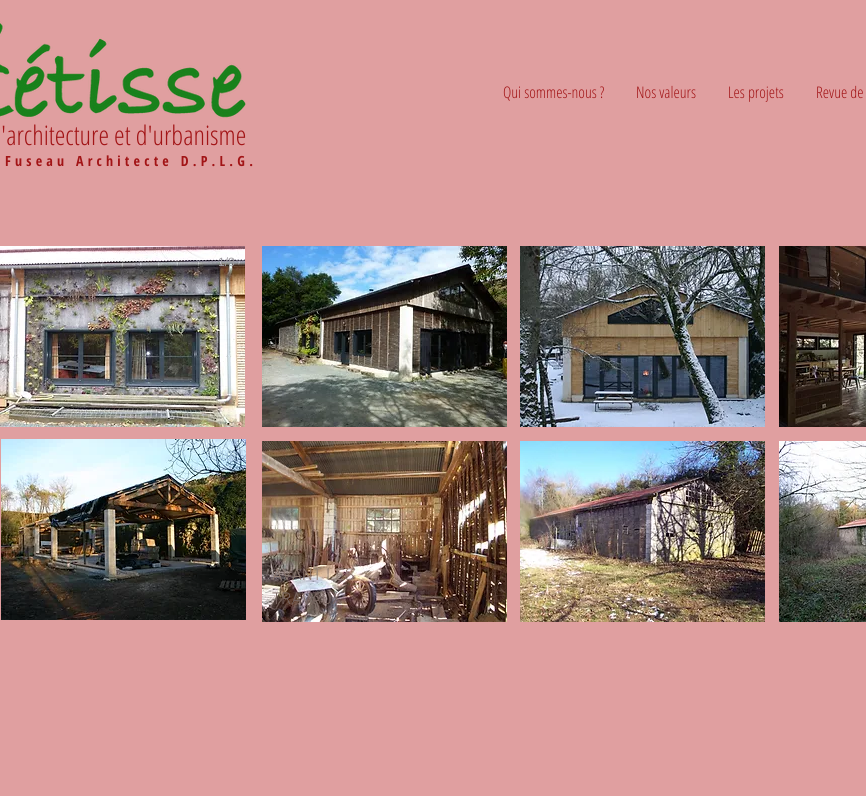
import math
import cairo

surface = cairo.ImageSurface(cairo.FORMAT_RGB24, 866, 796)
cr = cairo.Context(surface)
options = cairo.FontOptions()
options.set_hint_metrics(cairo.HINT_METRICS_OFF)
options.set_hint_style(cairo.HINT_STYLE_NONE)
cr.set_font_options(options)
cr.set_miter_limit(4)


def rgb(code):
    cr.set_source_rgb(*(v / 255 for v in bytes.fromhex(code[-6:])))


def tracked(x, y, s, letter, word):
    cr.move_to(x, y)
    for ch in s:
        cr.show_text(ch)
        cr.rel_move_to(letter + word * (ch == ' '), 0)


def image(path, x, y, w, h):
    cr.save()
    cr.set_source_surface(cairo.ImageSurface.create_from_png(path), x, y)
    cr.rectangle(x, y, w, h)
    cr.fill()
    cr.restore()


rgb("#e09fa0")
cr.paint()
image("img/1.png", 0, 21, 246, 98)
image("img/2.png", 0, 246, 245, 181)
image("img/3.png", 262, 246, 245, 181)
image("img/4.png", 520, 246, 245, 181)
image("img/5.png", 779, 246, 87, 181)
image("img/6.png", 1, 439, 245, 181)
image("img/7.png", 262, 441, 245, 181)
image("img/8.png", 520, 441, 245, 181)
image("img/9.png", 779, 441, 87, 181)
cr.select_font_face("Open Sans Condensed Light")
cr.set_font_size(16)
rgb("#a21416")
for x, y, s in [
    (503, 98, "Qui sommes-nous ?"),
    (636, 98, "Nos valeurs"),
    (728, 98, "Les projets"),
    (816, 98, "Revue de"),
]:
    cr.move_to(x, y)
    cr.show_text(s)
cr.set_font_size(27)
cr.move_to(1, 145)
cr.show_text("'architecture et d'urbanisme")
cr.select_font_face("Open Sans Condensed", cairo.FONT_SLANT_NORMAL, cairo.FONT_WEIGHT_BOLD)
cr.set_font_size(14)
tracked(5, 166, "Fuseau Architecte D.P.L.G.", 4.2, 0)
cr.select_font_face("Liberation Sans")
cr.set_font_size(12)
rgb("#9f9c9f")
cr.move_to(218, 266)
cr.show_text("1/8")
rgb("#717c80")
cr.move_to(480, 266)
cr.show_text("1/8")
rgb("#545e5f")
cr.move_to(738, 266)
cr.show_text("1/8")
rgb("#a9c8dd")
cr.move_to(219, 459)
cr.show_text("1/8")
rgb("#53362b")
cr.move_to(480, 461)
cr.show_text("1/8")
cr.select_font_face("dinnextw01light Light")
cr.set_font_size(17)
rgb("#8f7c73")
cr.move_to(272, 580)
cr.show_text("AVANT LES")
rgb("#776560")
cr.move_to(272, 604)
cr.show_text("TRAVAUX")
cr.select_font_face("Liberation Sans")
cr.set_font_size(12)
rgb("#6387b1")
cr.move_to(738, 461)
cr.show_text("1/8")
surface.write_to_png("page.png")
